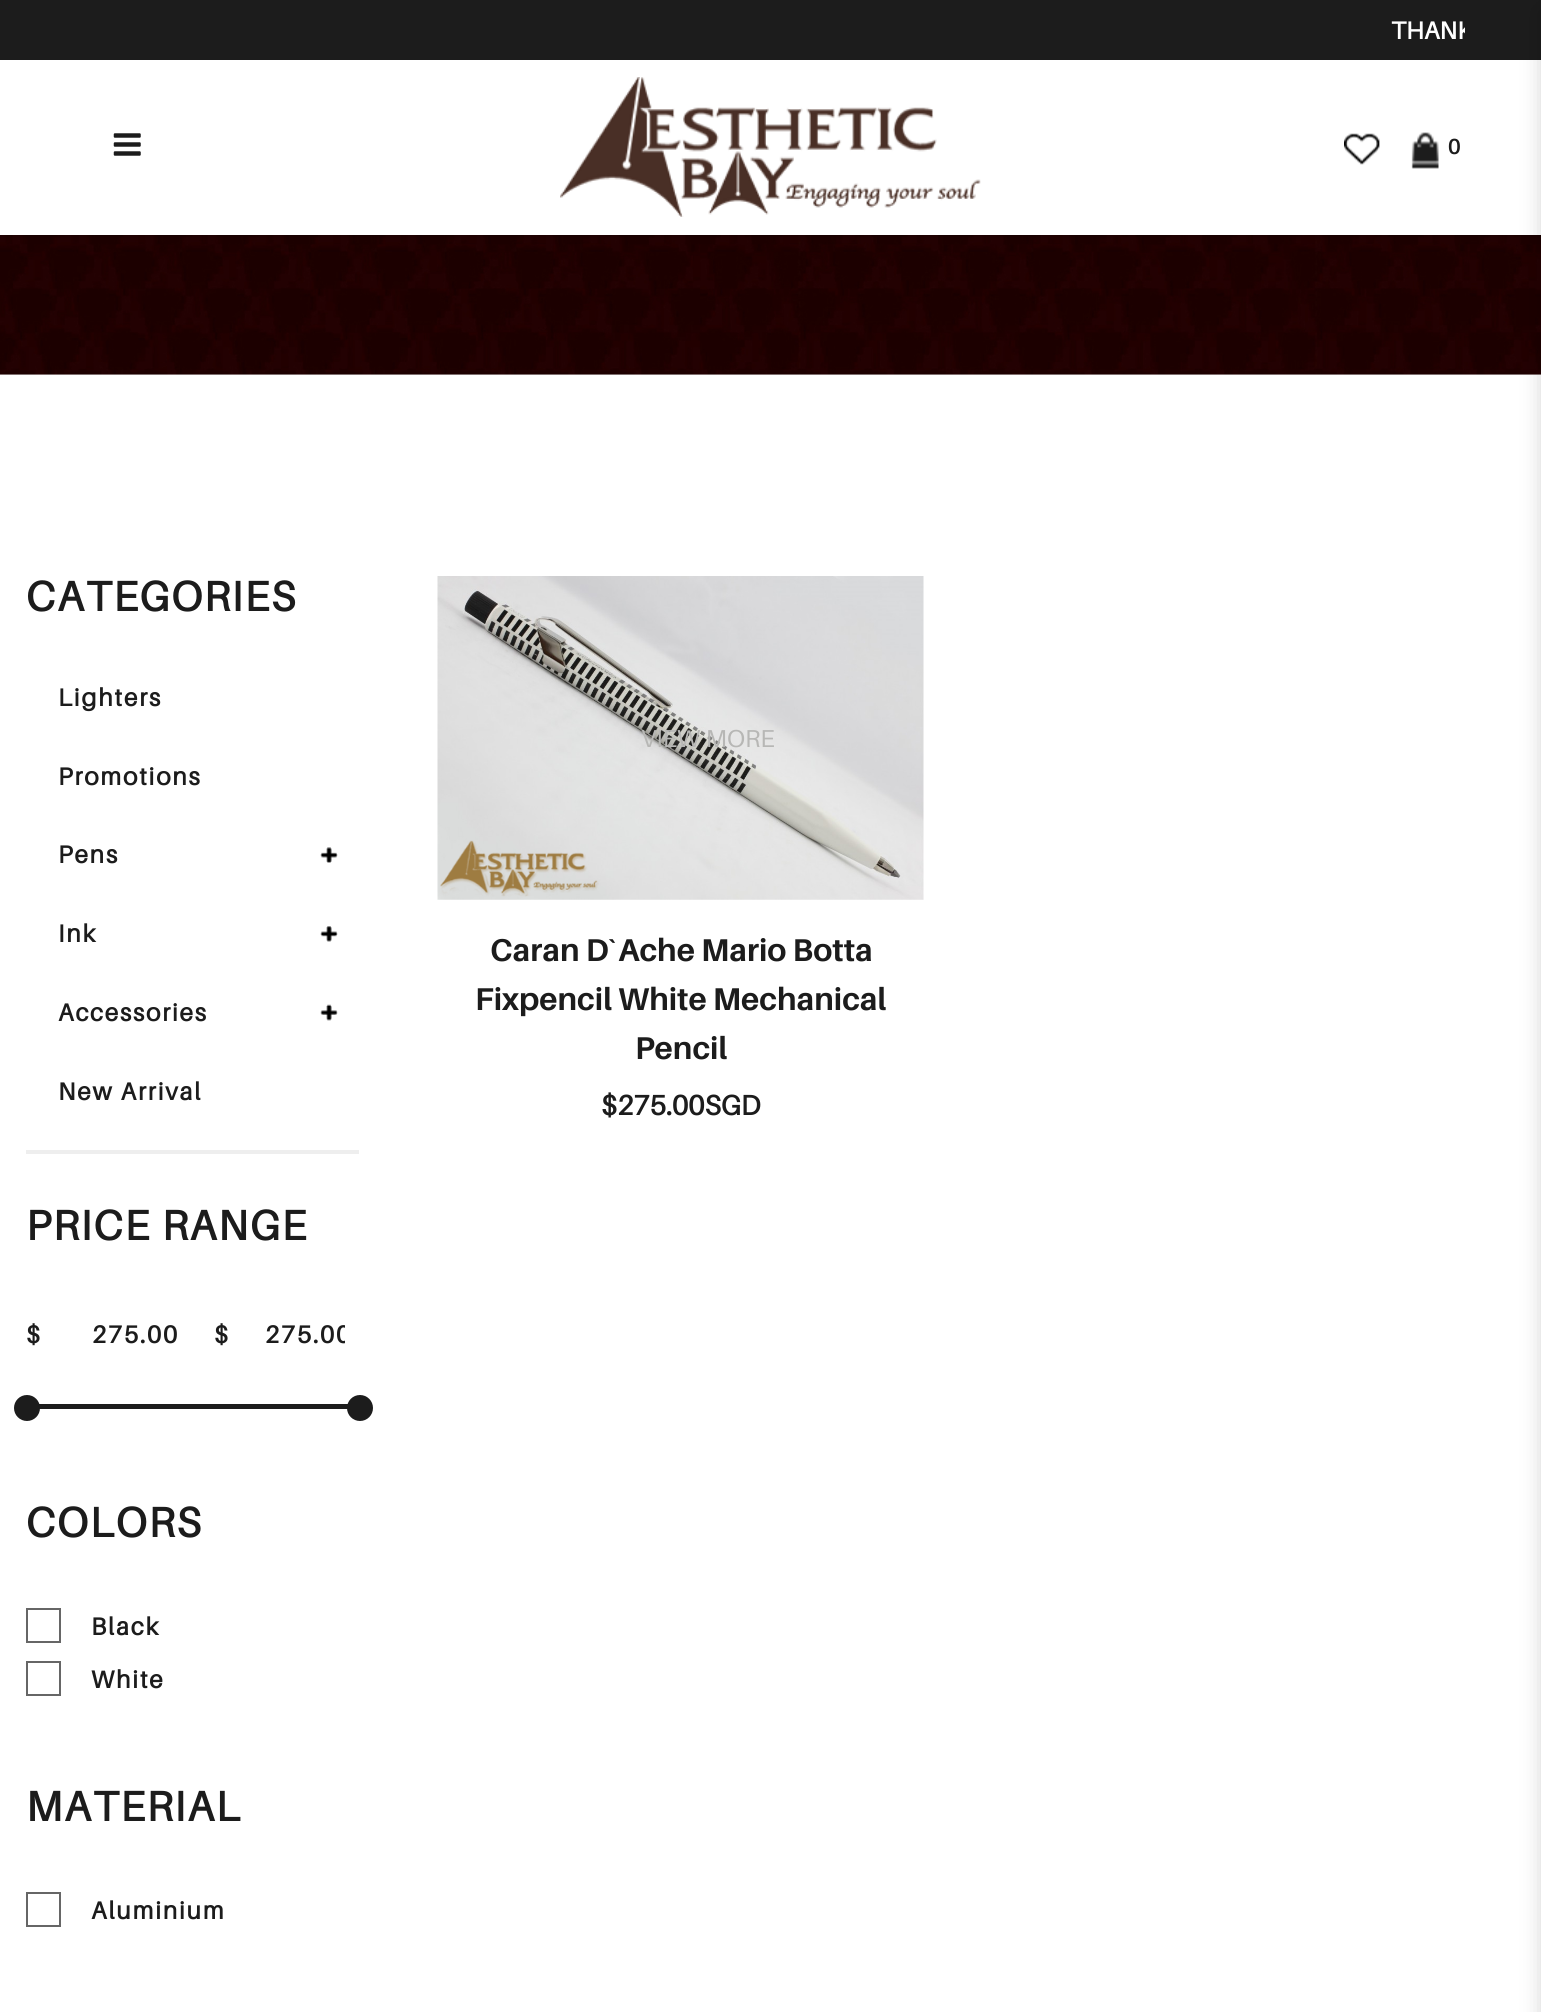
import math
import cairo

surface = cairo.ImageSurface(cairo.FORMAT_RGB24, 1541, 2012)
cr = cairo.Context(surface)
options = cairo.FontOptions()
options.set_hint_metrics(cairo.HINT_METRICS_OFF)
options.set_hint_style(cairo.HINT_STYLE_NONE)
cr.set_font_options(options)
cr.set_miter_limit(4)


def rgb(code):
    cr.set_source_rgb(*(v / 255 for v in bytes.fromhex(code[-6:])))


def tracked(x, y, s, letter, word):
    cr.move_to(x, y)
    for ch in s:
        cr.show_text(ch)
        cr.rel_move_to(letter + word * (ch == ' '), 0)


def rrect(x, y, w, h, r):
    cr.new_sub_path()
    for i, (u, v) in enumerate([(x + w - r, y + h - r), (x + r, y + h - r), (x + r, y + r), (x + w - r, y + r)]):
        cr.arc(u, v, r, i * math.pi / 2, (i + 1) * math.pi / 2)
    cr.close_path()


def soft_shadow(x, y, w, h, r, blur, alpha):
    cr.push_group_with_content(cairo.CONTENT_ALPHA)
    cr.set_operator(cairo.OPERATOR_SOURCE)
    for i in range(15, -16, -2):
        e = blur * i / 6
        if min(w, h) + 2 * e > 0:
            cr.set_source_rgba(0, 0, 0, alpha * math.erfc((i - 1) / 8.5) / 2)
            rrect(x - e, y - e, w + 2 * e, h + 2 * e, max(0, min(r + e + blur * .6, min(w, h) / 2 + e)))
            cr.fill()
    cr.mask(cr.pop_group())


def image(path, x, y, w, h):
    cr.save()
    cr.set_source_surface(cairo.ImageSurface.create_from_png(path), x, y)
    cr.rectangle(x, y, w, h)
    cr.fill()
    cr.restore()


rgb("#ffffff")
cr.paint()
image("img/5.png", 0, 235, 1541, 140)
rgb("#000000")
soft_shadow(0, 0, 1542, 235, 0, 2.5, 0.3)
rgb("#ffffff")
cr.rectangle(0, 60, 1541, 175)
cr.fill()
rgb("#1c1c1c")
cr.rectangle(0, 0, 1541, 60)
cr.fill()
image("img/1.png", 113, 133, 28, 23)
image("img/2.png", 560, 77, 421, 140)
image("img/3.png", 1344, 133, 36, 32)
image("img/4.png", 1411, 132, 28, 37)
rgb("#000000")
soft_shadow(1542, 11, 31, 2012, 0, 10.5, 0.18)
rgb("#eeeeee")
cr.rectangle(26, 1150, 333, 4)
cr.fill()
image("img/6.png", 320, 847, 18, 16)
image("img/7.png", 320, 926, 18, 16)
image("img/8.png", 320, 1004, 18, 17)
rgb("#1c1c1c")
cr.rectangle(39, 1404, 309, 5)
cr.fill()
cr.arc(27, 1408, 12, 0, 2 * math.pi)
cr.fill_preserve()
cr.stroke()
cr.arc(360, 1408, 12, 0, 2 * math.pi)
cr.fill_preserve()
cr.stroke()
cr.rectangle(27, 1609, 33, 33)
rgb("#666666")
cr.stroke()
cr.rectangle(27, 1662, 33, 33)
cr.stroke()
cr.rectangle(27, 1893, 33, 33)
cr.stroke()
image("img/9.png", 437, 576, 487, 324)
image("img/10.png", 440, 840, 159, 57)
cr.save()
cr.rectangle(77, 9, 1388, 42)
cr.clip()
cr.select_font_face("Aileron", cairo.FONT_SLANT_NORMAL, cairo.FONT_WEIGHT_BOLD)
cr.set_font_size(24.5)
rgb("#ffffff")
cr.move_to(1391, 39)
cr.show_text("THANK")
cr.restore()
cr.select_font_face("Aileron", cairo.FONT_SLANT_NORMAL, cairo.FONT_WEIGHT_BOLD)
cr.set_font_size(21)
rgb("#1c1c1c")
cr.move_to(1448, 154)
cr.show_text("0")
cr.set_font_size(42)
tracked(26, 611, "CATEGORIES", 1.75, 0)
cr.set_font_size(24.5)
for x, y, s in [
    (58, 706, "Lighters"),
    (58, 785, "Promotions"),
    (58, 863, "Pens"),
    (58, 942, "Ink"),
    (58, 1021, "Accessories"),
    (58, 1100, "New Arrival"),
]:
    tracked(x, y, s, 1.75, 0)
cr.set_font_size(42)
tracked(26, 1240, "PRICE RANGE", 1.75, 0)
cr.set_font_size(24.5)
for x, y, s in [
    (26, 1343, "$"),
    (92, 1343, "275.00"),
    (214, 1343, "$"),
]:
    tracked(x, y, s, 1.75, 0)
cr.save()
cr.rectangle(264, 1313, 81, 42)
cr.clip()
tracked(265, 1343, "275.00", 1.75, 0)
cr.restore()
cr.set_font_size(42)
tracked(26, 1537, "COLORS", 1.75, 0)
cr.set_font_size(24.5)
tracked(91, 1635, "Black", 1.75, 0)
tracked(91, 1688, "White", 1.75, 0)
cr.set_font_size(42)
tracked(26, 1821, "MATERIAL", 1.75, 0)
cr.set_font_size(24.5)
tracked(91, 1919, "Aluminium", 1.75, 0)
cr.select_font_face("Aileron")
rgb("#b7b7b5")
cr.move_to(641, 747)
cr.show_text("VIEW MORE")
cr.select_font_face("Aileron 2", cairo.FONT_SLANT_NORMAL, cairo.FONT_WEIGHT_BOLD)
cr.set_font_size(31.5)
rgb("#1c1c1c")
for x, y, s in [
    (490, 961, "Caran D`Ache Mario Botta"),
    (475, 1010, "Fixpencil White Mechanical"),
    (635, 1059, "Pencil"),
]:
    cr.move_to(x, y)
    cr.show_text(s)
cr.select_font_face("Aileron", cairo.FONT_SLANT_NORMAL, cairo.FONT_WEIGHT_BOLD)
cr.set_font_size(28)
cr.move_to(601, 1115)
cr.show_text("$275.00SGD")
surface.write_to_png("page.png")
